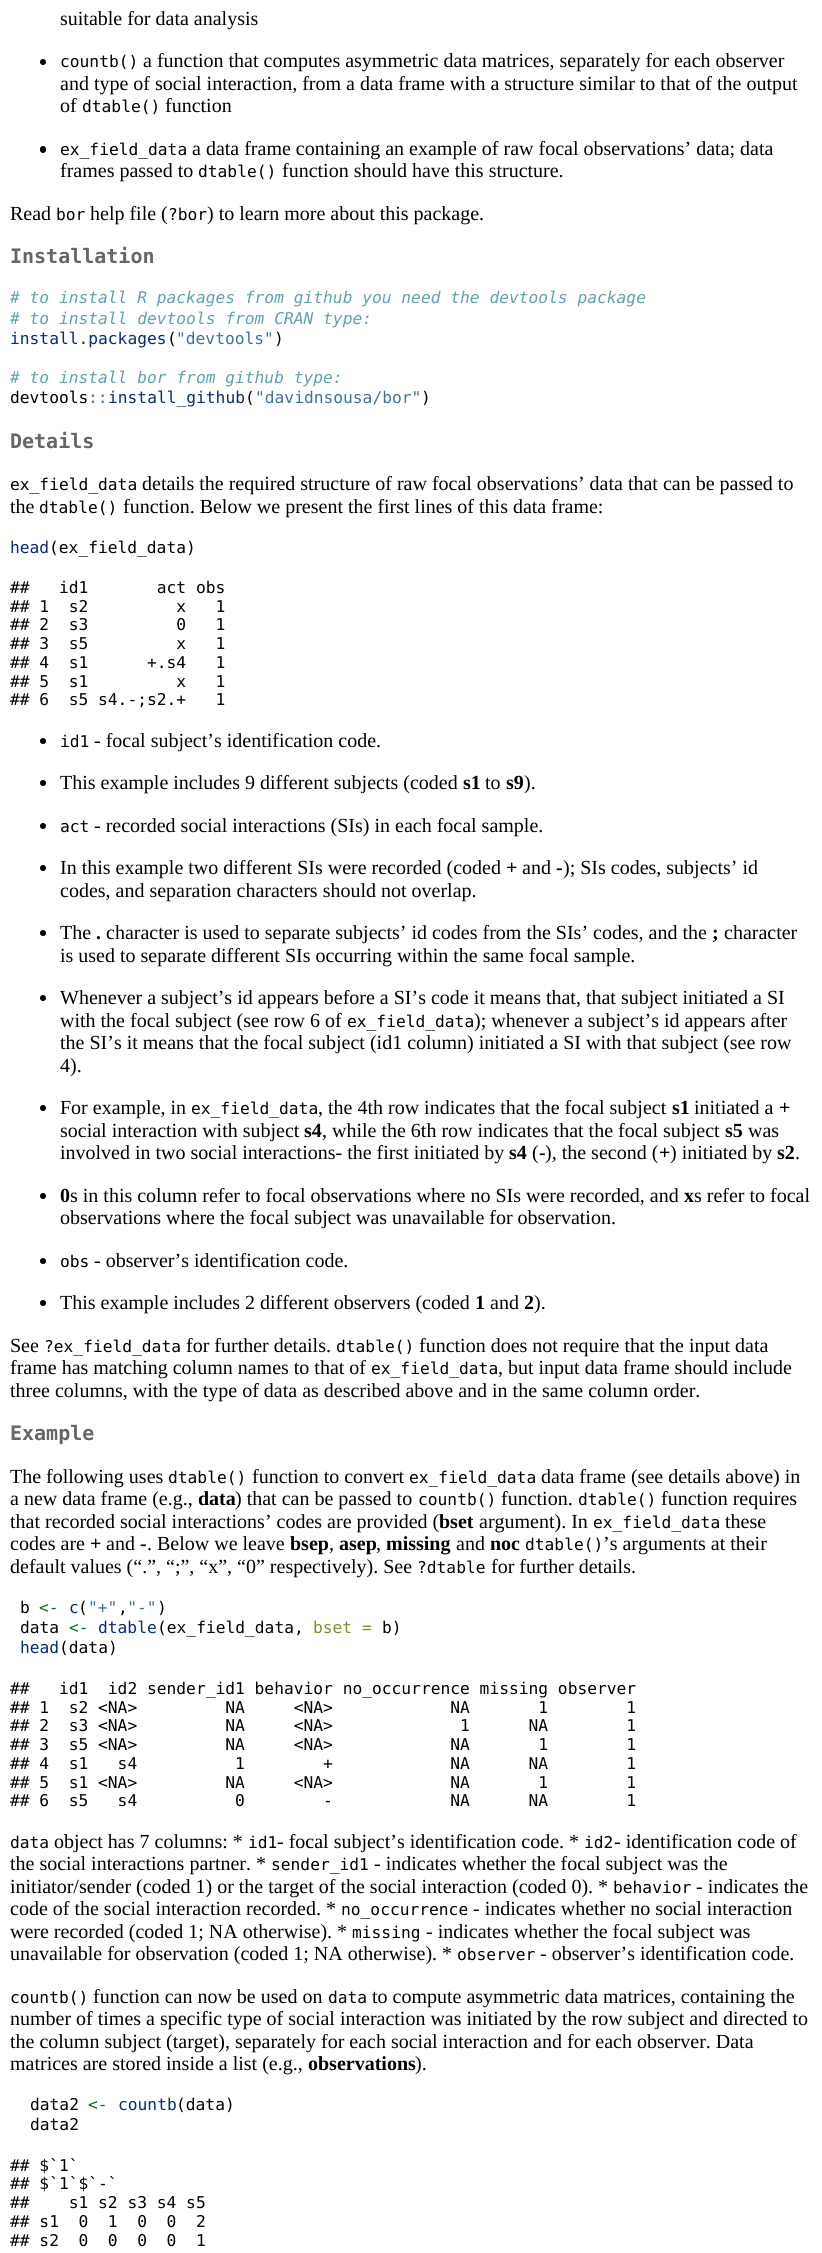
import math
import cairo

surface = cairo.ImageSurface(cairo.FORMAT_RGB24, 822, 2253)
cr = cairo.Context(surface)
options = cairo.FontOptions()
options.set_hint_metrics(cairo.HINT_METRICS_OFF)
options.set_hint_style(cairo.HINT_STYLE_NONE)
cr.set_font_options(options)
cr.set_miter_limit(4)


def rgb(code):
    cr.set_source_rgb(*(v / 255 for v in bytes.fromhex(code[-6:])))


def rrect(x, y, w, h, r):
    cr.new_sub_path()
    for i, (u, v) in enumerate([(x + w - r, y + h - r), (x + r, y + h - r), (x + r, y + r), (x + w - r, y + r)]):
        cr.arc(u, v, r, i * math.pi / 2, (i + 1) * math.pi / 2)
    cr.close_path()


rgb("#ffffff")
cr.paint()
rgb("#000000")
cr.arc(43, 62, 3, 0, 2 * math.pi)
cr.fill()
rrect(40, 146, 6, 7, 3)
cr.fill()
cr.arc(43, 741, 3, 0, 2 * math.pi)
cr.fill()
cr.arc(43, 783, 3, 0, 2 * math.pi)
cr.fill()
cr.arc(43, 826, 3, 0, 2 * math.pi)
cr.fill()
cr.arc(43, 868, 3, 0, 2 * math.pi)
cr.fill()
cr.arc(43, 933, 3, 0, 2 * math.pi)
cr.fill()
cr.arc(43, 998, 3, 0, 2 * math.pi)
cr.fill()
cr.arc(43, 1108, 3, 0, 2 * math.pi)
cr.fill()
cr.arc(43, 1196, 3, 0, 2 * math.pi)
cr.fill()
cr.arc(43, 1261, 3, 0, 2 * math.pi)
cr.fill()
cr.arc(43, 1303, 3, 0, 2 * math.pi)
cr.fill()
cr.select_font_face("Liberation Serif")
cr.set_font_size(20)
cr.move_to(60, 25)
cr.show_text("suitable for data analysis")
cr.select_font_face("DejaVu Sans Mono")
cr.set_font_size(16.25)
cr.move_to(60, 67)
cr.show_text("countb()")
cr.select_font_face("Liberation Serif")
cr.set_font_size(20)
for x, y, s in [
    (143, 67, "a function that computes asymmetric data matrices, separately for each observer"),
    (60, 90, "and type of social interaction, from a data frame with a structure similar to that of the output"),
    (60, 112, "of"),
]:
    cr.move_to(x, y)
    cr.show_text(s)
cr.select_font_face("DejaVu Sans Mono")
cr.set_font_size(16.25)
cr.move_to(82, 112)
cr.show_text("dtable()")
cr.select_font_face("Liberation Serif")
cr.set_font_size(20)
cr.move_to(165, 112)
cr.show_text("function")
cr.select_font_face("DejaVu Sans Mono")
cr.set_font_size(16.25)
cr.move_to(60, 155)
cr.show_text("ex_field_data")
cr.select_font_face("Liberation Serif")
cr.set_font_size(20)
cr.move_to(192, 155)
cr.show_text("a data frame containing an example of raw focal observations’ data; data")
cr.move_to(60, 177)
cr.show_text("frames passed to")
cr.select_font_face("DejaVu Sans Mono")
cr.set_font_size(16.25)
cr.move_to(198, 177)
cr.show_text("dtable()")
cr.select_font_face("Liberation Serif")
cr.set_font_size(20)
cr.move_to(282, 177)
cr.show_text("function should have this structure.")
cr.move_to(10, 220)
cr.show_text("Read")
cr.select_font_face("DejaVu Sans Mono")
cr.set_font_size(16.25)
cr.move_to(56, 220)
cr.show_text("bor")
cr.select_font_face("Liberation Serif")
cr.set_font_size(20)
cr.move_to(90, 220)
cr.show_text("help file (")
cr.select_font_face("DejaVu Sans Mono")
cr.set_font_size(16.25)
cr.move_to(168, 220)
cr.show_text("?bor")
cr.select_font_face("Liberation Serif")
cr.set_font_size(20)
cr.move_to(207, 220)
cr.show_text(") to learn more about this package.")
cr.select_font_face("DejaVu Sans Mono", cairo.FONT_SLANT_NORMAL, cairo.FONT_WEIGHT_BOLD)
rgb("#666666")
cr.move_to(10, 263)
cr.show_text("Installation")
cr.select_font_face("DejaVu Sans Mono", cairo.FONT_SLANT_ITALIC)
cr.set_font_size(16.25)
rgb("#60a0b0")
cr.move_to(10, 303)
cr.show_text("# to install R packages from github you need the devtools package")
cr.move_to(10, 324)
cr.show_text("# to install devtools from CRAN type:")
cr.select_font_face("DejaVu Sans Mono")
rgb("#06287e")
cr.move_to(10, 344)
cr.show_text("install.packages")
rgb("#000000")
cr.move_to(167, 344)
cr.show_text("(")
rgb("#4070a0")
cr.move_to(176, 344)
cr.show_text("\"devtools\"")
rgb("#000000")
cr.move_to(274, 344)
cr.show_text(")")
cr.select_font_face("DejaVu Sans Mono", cairo.FONT_SLANT_ITALIC)
rgb("#60a0b0")
cr.move_to(10, 383)
cr.show_text("# to install bor from github type:")
cr.select_font_face("DejaVu Sans Mono")
rgb("#000000")
cr.move_to(10, 403)
cr.show_text("devtools")
rgb("#4070a0")
cr.move_to(88, 403)
cr.show_text("::")
rgb("#06287e")
cr.move_to(108, 403)
cr.show_text("install_github")
rgb("#000000")
cr.move_to(245, 403)
cr.show_text("(")
rgb("#4070a0")
cr.move_to(255, 403)
cr.show_text("\"davidnsousa/bor\"")
rgb("#000000")
cr.move_to(421, 403)
cr.show_text(")")
cr.select_font_face("DejaVu Sans Mono", cairo.FONT_SLANT_NORMAL, cairo.FONT_WEIGHT_BOLD)
cr.set_font_size(20)
rgb("#666666")
cr.move_to(10, 448)
cr.show_text("Details")
cr.select_font_face("DejaVu Sans Mono")
cr.set_font_size(16.25)
rgb("#000000")
cr.move_to(10, 490)
cr.show_text("ex_field_data")
cr.select_font_face("Liberation Serif")
cr.set_font_size(20)
cr.move_to(142, 490)
cr.show_text("details the required structure of raw focal observations’ data that can be passed to")
cr.move_to(10, 513)
cr.show_text("the")
cr.select_font_face("DejaVu Sans Mono")
cr.set_font_size(16.25)
cr.move_to(39, 513)
cr.show_text("dtable()")
cr.select_font_face("Liberation Serif")
cr.set_font_size(20)
cr.move_to(123, 513)
cr.show_text("function. Below we present the first lines of this data frame:")
cr.select_font_face("DejaVu Sans Mono")
cr.set_font_size(16.25)
rgb("#06287e")
cr.move_to(10, 553)
cr.show_text("head")
rgb("#000000")
for x, y, s in [
    (49, 553, "(ex_field_data)"),
    (10, 593, "##   id1       act obs"),
    (10, 612, "## 1  s2         x   1"),
    (10, 630, "## 2  s3         0   1"),
    (10, 649, "## 3  s5         x   1"),
    (10, 668, "## 4  s1      +.s4   1"),
    (10, 687, "## 5  s1         x   1"),
    (10, 705, "## 6  s5 s4.-;s2.+   1"),
    (60, 747, "id1"),
]:
    cr.move_to(x, y)
    cr.show_text(s)
cr.select_font_face("Liberation Serif")
cr.set_font_size(20)
cr.move_to(94, 747)
cr.show_text("- focal subject’s identification code.")
cr.move_to(60, 789)
cr.show_text("This example includes 9 different subjects (coded")
cr.select_font_face("Liberation Serif", cairo.FONT_SLANT_NORMAL, cairo.FONT_WEIGHT_BOLD)
cr.move_to(463, 789)
cr.show_text("s1")
cr.select_font_face("Liberation Serif")
cr.move_to(485, 789)
cr.show_text("to")
cr.select_font_face("Liberation Serif", cairo.FONT_SLANT_NORMAL, cairo.FONT_WEIGHT_BOLD)
cr.move_to(506, 789)
cr.show_text("s9")
cr.select_font_face("Liberation Serif")
cr.move_to(524, 789)
cr.show_text(").")
cr.select_font_face("DejaVu Sans Mono")
cr.set_font_size(16.25)
cr.move_to(60, 832)
cr.show_text("act")
cr.select_font_face("Liberation Serif")
cr.set_font_size(20)
cr.move_to(94, 832)
cr.show_text("- recorded social interactions (SIs) in each focal sample.")
cr.move_to(60, 874)
cr.show_text("In this example two different SIs were recorded (coded")
cr.select_font_face("Liberation Serif", cairo.FONT_SLANT_NORMAL, cairo.FONT_WEIGHT_BOLD)
cr.move_to(506, 874)
cr.show_text("+")
cr.select_font_face("Liberation Serif")
cr.move_to(522, 874)
cr.show_text("and")
cr.select_font_face("Liberation Serif", cairo.FONT_SLANT_NORMAL, cairo.FONT_WEIGHT_BOLD)
cr.move_to(556, 874)
cr.show_text("-")
cr.select_font_face("Liberation Serif")
for x, y, s in [
    (563, 874, "); SIs codes, subjects’ id"),
    (60, 897, "codes, and separation characters should not overlap."),
    (60, 939, "The"),
]:
    cr.move_to(x, y)
    cr.show_text(s)
cr.select_font_face("Liberation Serif", cairo.FONT_SLANT_NORMAL, cairo.FONT_WEIGHT_BOLD)
cr.move_to(96, 939)
cr.show_text(".")
cr.select_font_face("Liberation Serif")
cr.move_to(106, 939)
cr.show_text("character is used to separate subjects’ id codes from the SIs’ codes, and the")
cr.select_font_face("Liberation Serif", cairo.FONT_SLANT_NORMAL, cairo.FONT_WEIGHT_BOLD)
cr.move_to(712, 939)
cr.show_text(";")
cr.select_font_face("Liberation Serif")
for x, y, s in [
    (724, 939, "character"),
    (60, 962, "is used to separate different SIs occurring within the same focal sample."),
    (60, 1004, "Whenever a subject’s id appears before a SI’s code it means that, that subject initiated a SI"),
    (60, 1027, "with the focal subject (see row 6 of"),
]:
    cr.move_to(x, y)
    cr.show_text(s)
cr.select_font_face("DejaVu Sans Mono")
cr.set_font_size(16.25)
cr.move_to(347, 1027)
cr.show_text("ex_field_data")
cr.select_font_face("Liberation Serif")
cr.set_font_size(20)
for x, y, s in [
    (474, 1027, "); whenever a subject’s id appears after"),
    (60, 1049, "the SI’s it means that the focal subject (id1 column) initiated a SI with that subject (see row"),
    (60, 1072, "4)."),
    (60, 1114, "For example, in"),
]:
    cr.move_to(x, y)
    cr.show_text(s)
cr.select_font_face("DejaVu Sans Mono")
cr.set_font_size(16.25)
cr.move_to(191, 1114)
cr.show_text("ex_field_data")
cr.select_font_face("Liberation Serif")
cr.set_font_size(20)
cr.move_to(318, 1114)
cr.show_text(", the 4th row indicates that the focal subject")
cr.select_font_face("Liberation Serif", cairo.FONT_SLANT_NORMAL, cairo.FONT_WEIGHT_BOLD)
cr.move_to(672, 1114)
cr.show_text("s1")
cr.select_font_face("Liberation Serif")
cr.move_to(694, 1114)
cr.show_text("initiated a")
cr.select_font_face("Liberation Serif", cairo.FONT_SLANT_NORMAL, cairo.FONT_WEIGHT_BOLD)
cr.move_to(779, 1114)
cr.show_text("+")
cr.select_font_face("Liberation Serif")
cr.move_to(60, 1137)
cr.show_text("social interaction with subject")
cr.select_font_face("Liberation Serif", cairo.FONT_SLANT_NORMAL, cairo.FONT_WEIGHT_BOLD)
cr.move_to(304, 1137)
cr.show_text("s4")
cr.select_font_face("Liberation Serif")
cr.move_to(322, 1137)
cr.show_text(", while the 6th row indicates that the focal subject")
cr.select_font_face("Liberation Serif", cairo.FONT_SLANT_NORMAL, cairo.FONT_WEIGHT_BOLD)
cr.move_to(725, 1137)
cr.show_text("s5")
cr.select_font_face("Liberation Serif")
cr.move_to(748, 1137)
cr.show_text("was")
cr.move_to(60, 1159)
cr.show_text("involved in two social interactions- the first initiated by")
cr.select_font_face("Liberation Serif", cairo.FONT_SLANT_NORMAL, cairo.FONT_WEIGHT_BOLD)
cr.move_to(509, 1159)
cr.show_text("s4")
cr.select_font_face("Liberation Serif")
cr.move_to(532, 1159)
cr.show_text("(")
cr.select_font_face("Liberation Serif", cairo.FONT_SLANT_NORMAL, cairo.FONT_WEIGHT_BOLD)
cr.move_to(539, 1159)
cr.show_text("-")
cr.select_font_face("Liberation Serif")
cr.move_to(545, 1159)
cr.show_text("), the second (")
cr.select_font_face("Liberation Serif", cairo.FONT_SLANT_NORMAL, cairo.FONT_WEIGHT_BOLD)
cr.move_to(659, 1159)
cr.show_text("+")
cr.select_font_face("Liberation Serif")
cr.move_to(670, 1159)
cr.show_text(") initiated by")
cr.select_font_face("Liberation Serif", cairo.FONT_SLANT_NORMAL, cairo.FONT_WEIGHT_BOLD)
cr.move_to(777, 1159)
cr.show_text("s2")
cr.select_font_face("Liberation Serif")
cr.move_to(795, 1159)
cr.show_text(".")
cr.select_font_face("Liberation Serif", cairo.FONT_SLANT_NORMAL, cairo.FONT_WEIGHT_BOLD)
cr.move_to(60, 1202)
cr.show_text("0")
cr.select_font_face("Liberation Serif")
cr.move_to(70, 1202)
cr.show_text("s in this column refer to focal observations where no SIs were recorded, and")
cr.select_font_face("Liberation Serif", cairo.FONT_SLANT_NORMAL, cairo.FONT_WEIGHT_BOLD)
cr.move_to(684, 1202)
cr.show_text("x")
cr.select_font_face("Liberation Serif")
cr.move_to(694, 1202)
cr.show_text("s refer to focal")
cr.move_to(60, 1224)
cr.show_text("observations where the focal subject was unavailable for observation.")
cr.select_font_face("DejaVu Sans Mono")
cr.set_font_size(16.25)
cr.move_to(60, 1267)
cr.show_text("obs")
cr.select_font_face("Liberation Serif")
cr.set_font_size(20)
cr.move_to(94, 1267)
cr.show_text("- observer’s identification code.")
cr.move_to(60, 1309)
cr.show_text("This example includes 2 different observers (coded")
cr.select_font_face("Liberation Serif", cairo.FONT_SLANT_NORMAL, cairo.FONT_WEIGHT_BOLD)
cr.move_to(475, 1309)
cr.show_text("1")
cr.select_font_face("Liberation Serif")
cr.move_to(490, 1309)
cr.show_text("and")
cr.select_font_face("Liberation Serif", cairo.FONT_SLANT_NORMAL, cairo.FONT_WEIGHT_BOLD)
cr.move_to(524, 1309)
cr.show_text("2")
cr.select_font_face("Liberation Serif")
cr.move_to(534, 1309)
cr.show_text(").")
cr.move_to(10, 1352)
cr.show_text("See")
cr.select_font_face("DejaVu Sans Mono")
cr.set_font_size(16.25)
cr.move_to(44, 1352)
cr.show_text("?ex_field_data")
cr.select_font_face("Liberation Serif")
cr.set_font_size(20)
cr.move_to(186, 1352)
cr.show_text("for further details.")
cr.select_font_face("DejaVu Sans Mono")
cr.set_font_size(16.25)
cr.move_to(336, 1352)
cr.show_text("dtable()")
cr.select_font_face("Liberation Serif")
cr.set_font_size(20)
cr.move_to(419, 1352)
cr.show_text("function does not require that the input data")
cr.move_to(10, 1374)
cr.show_text("frame has matching column names to that of")
cr.select_font_face("DejaVu Sans Mono")
cr.set_font_size(16.25)
cr.move_to(371, 1374)
cr.show_text("ex_field_data")
cr.select_font_face("Liberation Serif")
cr.set_font_size(20)
cr.move_to(498, 1374)
cr.show_text(", but input data frame should include")
cr.move_to(10, 1397)
cr.show_text("three columns, with the type of data as described above and in the same column order.")
cr.select_font_face("DejaVu Sans Mono", cairo.FONT_SLANT_NORMAL, cairo.FONT_WEIGHT_BOLD)
rgb("#666666")
cr.move_to(10, 1440)
cr.show_text("Example")
cr.select_font_face("Liberation Serif")
rgb("#000000")
cr.move_to(10, 1483)
cr.show_text("The following uses")
cr.select_font_face("DejaVu Sans Mono")
cr.set_font_size(16.25)
cr.move_to(168, 1483)
cr.show_text("dtable()")
cr.select_font_face("Liberation Serif")
cr.set_font_size(20)
cr.move_to(252, 1483)
cr.show_text("function to convert")
cr.select_font_face("DejaVu Sans Mono")
cr.set_font_size(16.25)
cr.move_to(409, 1483)
cr.show_text("ex_field_data")
cr.select_font_face("Liberation Serif")
cr.set_font_size(20)
cr.move_to(541, 1483)
cr.show_text("data frame (see details above) in")
cr.move_to(10, 1505)
cr.show_text("a new data frame (e.g.,")
cr.select_font_face("Liberation Serif", cairo.FONT_SLANT_NORMAL, cairo.FONT_WEIGHT_BOLD)
cr.move_to(198, 1505)
cr.show_text("data")
cr.select_font_face("Liberation Serif")
cr.move_to(235, 1505)
cr.show_text(") that can be passed to")
cr.select_font_face("DejaVu Sans Mono")
cr.set_font_size(16.25)
cr.move_to(418, 1505)
cr.show_text("countb()")
cr.select_font_face("Liberation Serif")
cr.set_font_size(20)
cr.move_to(501, 1505)
cr.show_text("function.")
cr.select_font_face("DejaVu Sans Mono")
cr.set_font_size(16.25)
cr.move_to(578, 1505)
cr.show_text("dtable()")
cr.select_font_face("Liberation Serif")
cr.set_font_size(20)
cr.move_to(661, 1505)
cr.show_text("function requires")
cr.move_to(10, 1528)
cr.show_text("that recorded social interactions’ codes are provided (")
cr.select_font_face("Liberation Serif", cairo.FONT_SLANT_NORMAL, cairo.FONT_WEIGHT_BOLD)
cr.move_to(439, 1528)
cr.show_text("bset")
cr.select_font_face("Liberation Serif")
cr.move_to(479, 1528)
cr.show_text("argument). In")
cr.select_font_face("DejaVu Sans Mono")
cr.set_font_size(16.25)
cr.move_to(593, 1528)
cr.show_text("ex_field_data")
cr.select_font_face("Liberation Serif")
cr.set_font_size(20)
cr.move_to(725, 1528)
cr.show_text("these")
cr.move_to(10, 1550)
cr.show_text("codes are")
cr.select_font_face("Liberation Serif", cairo.FONT_SLANT_NORMAL, cairo.FONT_WEIGHT_BOLD)
cr.move_to(90, 1550)
cr.show_text("+")
cr.select_font_face("Liberation Serif")
cr.move_to(106, 1550)
cr.show_text("and")
cr.select_font_face("Liberation Serif", cairo.FONT_SLANT_NORMAL, cairo.FONT_WEIGHT_BOLD)
cr.move_to(140, 1550)
cr.show_text("-")
cr.select_font_face("Liberation Serif")
cr.move_to(147, 1550)
cr.show_text(". Below we leave")
cr.select_font_face("Liberation Serif", cairo.FONT_SLANT_NORMAL, cairo.FONT_WEIGHT_BOLD)
for x, y, s in [
    (290, 1550, "bsep"),
    (339, 1550, "asep"),
    (386, 1550, "missing"),
]:
    cr.move_to(x, y)
    cr.show_text(s)
cr.select_font_face("Liberation Serif")
cr.move_to(456, 1550)
cr.show_text("and")
cr.select_font_face("Liberation Serif", cairo.FONT_SLANT_NORMAL, cairo.FONT_WEIGHT_BOLD)
cr.move_to(490, 1550)
cr.show_text("noc")
cr.select_font_face("DejaVu Sans Mono")
cr.set_font_size(16.25)
cr.move_to(525, 1550)
cr.show_text("dtable()")
cr.select_font_face("Liberation Serif")
cr.set_font_size(20)
for x, y, s in [
    (603, 1550, "’s arguments at their"),
    (329, 1550, ","),
    (376, 1550, ","),
    (10, 1573, "default values (“.”, “;”, “x”, “0” respectively). See"),
]:
    cr.move_to(x, y)
    cr.show_text(s)
cr.select_font_face("DejaVu Sans Mono")
cr.set_font_size(16.25)
cr.move_to(417, 1573)
cr.show_text("?dtable")
cr.select_font_face("Liberation Serif")
cr.set_font_size(20)
cr.move_to(491, 1573)
cr.show_text("for further details.")
cr.select_font_face("DejaVu Sans Mono")
cr.set_font_size(16.25)
cr.move_to(20, 1613)
cr.show_text("b")
rgb("#007020")
cr.move_to(39, 1613)
cr.show_text("<-")
rgb("#06287e")
cr.move_to(69, 1613)
cr.show_text("c")
rgb("#000000")
cr.move_to(78, 1613)
cr.show_text("(")
rgb("#4070a0")
cr.move_to(88, 1613)
cr.show_text("\"+\" \"-\"")
rgb("#000000")
for x, y, s in [
    (157, 1613, ")"),
    (118, 1613, ","),
    (20, 1633, "data"),
]:
    cr.move_to(x, y)
    cr.show_text(s)
rgb("#007020")
cr.move_to(69, 1633)
cr.show_text("<-")
rgb("#06287e")
cr.move_to(98, 1633)
cr.show_text("dtable")
rgb("#000000")
cr.move_to(157, 1633)
cr.show_text("(ex_field_data,")
rgb("#7d9029")
cr.move_to(313, 1633)
cr.show_text("bset =")
rgb("#000000")
cr.move_to(382, 1633)
cr.show_text("b)")
rgb("#06287e")
cr.move_to(20, 1653)
cr.show_text("head")
rgb("#000000")
for x, y, s in [
    (59, 1653, "(data)"),
    (10, 1694, "##   id1  id2 sender_id1 behavior no_occurrence missing observer"),
    (10, 1713, "## 1  s2 <NA>         NA     <NA>            NA       1        1"),
    (10, 1731, "## 2  s3 <NA>         NA     <NA>             1      NA        1"),
    (10, 1750, "## 3  s5 <NA>         NA     <NA>            NA       1        1"),
    (10, 1769, "## 4  s1   s4          1        +            NA      NA        1"),
    (10, 1788, "## 5  s1 <NA>         NA     <NA>            NA       1        1"),
    (10, 1806, "## 6  s5   s4          0        -            NA      NA        1"),
    (10, 1848, "data"),
]:
    cr.move_to(x, y)
    cr.show_text(s)
cr.select_font_face("Liberation Serif")
cr.set_font_size(20)
cr.move_to(54, 1848)
cr.show_text("object has 7 columns: *")
cr.select_font_face("DejaVu Sans Mono")
cr.set_font_size(16.25)
cr.move_to(248, 1848)
cr.show_text("id1")
cr.select_font_face("Liberation Serif")
cr.set_font_size(20)
cr.move_to(277, 1848)
cr.show_text("- focal subject’s identification code. *")
cr.select_font_face("DejaVu Sans Mono")
cr.set_font_size(16.25)
cr.move_to(584, 1848)
cr.show_text("id2")
cr.select_font_face("Liberation Serif")
cr.set_font_size(20)
cr.move_to(614, 1848)
cr.show_text("- identification code of")
cr.move_to(10, 1870)
cr.show_text("the social interactions partner. *")
cr.select_font_face("DejaVu Sans Mono")
cr.set_font_size(16.25)
cr.move_to(271, 1870)
cr.show_text("sender_id1")
cr.select_font_face("Liberation Serif")
cr.set_font_size(20)
cr.move_to(374, 1870)
cr.show_text("- indicates whether the focal subject was the")
cr.move_to(10, 1893)
cr.show_text("initiator/sender (coded 1) or the target of the social interaction (coded 0). *")
cr.select_font_face("DejaVu Sans Mono")
cr.set_font_size(16.25)
cr.move_to(613, 1893)
cr.show_text("behavior")
cr.select_font_face("Liberation Serif")
cr.set_font_size(20)
cr.move_to(696, 1893)
cr.show_text("- indicates the")
cr.move_to(10, 1915)
cr.show_text("code of the social interaction recorded. *")
cr.select_font_face("DejaVu Sans Mono")
cr.set_font_size(16.25)
cr.move_to(341, 1915)
cr.show_text("no_occurrence")
cr.select_font_face("Liberation Serif")
cr.set_font_size(20)
cr.move_to(473, 1915)
cr.show_text("- indicates whether no social interaction")
cr.move_to(10, 1938)
cr.show_text("were recorded (coded 1; NA otherwise). *")
cr.select_font_face("DejaVu Sans Mono")
cr.set_font_size(16.25)
cr.move_to(352, 1938)
cr.show_text("missing")
cr.select_font_face("Liberation Serif")
cr.set_font_size(20)
cr.move_to(426, 1938)
cr.show_text("- indicates whether the focal subject was")
cr.move_to(10, 1960)
cr.show_text("unavailable for observation (coded 1; NA otherwise). *")
cr.select_font_face("DejaVu Sans Mono")
cr.set_font_size(16.25)
cr.move_to(457, 1960)
cr.show_text("observer")
cr.select_font_face("Liberation Serif")
cr.set_font_size(20)
cr.move_to(540, 1960)
cr.show_text("- observer’s identification code.")
cr.select_font_face("DejaVu Sans Mono")
cr.set_font_size(16.25)
cr.move_to(10, 2003)
cr.show_text("countb()")
cr.select_font_face("Liberation Serif")
cr.set_font_size(20)
cr.move_to(93, 2003)
cr.show_text("function can now be used on")
cr.select_font_face("DejaVu Sans Mono")
cr.set_font_size(16.25)
cr.move_to(328, 2003)
cr.show_text("data")
cr.select_font_face("Liberation Serif")
cr.set_font_size(20)
for x, y, s in [
    (372, 2003, "to compute asymmetric data matrices, containing the"),
    (10, 2025, "number of times a specific type of social interaction was initiated by the row subject and directed to"),
    (10, 2048, "the column subject (target), separately for each social interaction and for each observer. Data"),
    (10, 2070, "matrices are stored inside a list (e.g.,"),
]:
    cr.move_to(x, y)
    cr.show_text(s)
cr.select_font_face("Liberation Serif", cairo.FONT_SLANT_NORMAL, cairo.FONT_WEIGHT_BOLD)
cr.move_to(308, 2070)
cr.show_text("observations")
cr.select_font_face("Liberation Serif")
cr.move_to(415, 2070)
cr.show_text(").")
cr.select_font_face("DejaVu Sans Mono")
cr.set_font_size(16.25)
cr.move_to(30, 2110)
cr.show_text("data2")
rgb("#007020")
cr.move_to(88, 2110)
cr.show_text("<-")
rgb("#06287e")
cr.move_to(118, 2110)
cr.show_text("countb")
rgb("#000000")
for x, y, s in [
    (176, 2110, "(data)"),
    (30, 2130, "data2"),
    (10, 2171, "## $`1`"),
    (10, 2189, "## $`1`$`-`"),
    (10, 2208, "##    s1 s2 s3 s4 s5"),
    (10, 2227, "## s1  0  1  0  0  2"),
    (10, 2246, "## s2  0  0  0  0  1"),
]:
    cr.move_to(x, y)
    cr.show_text(s)
surface.write_to_png("page.png")
